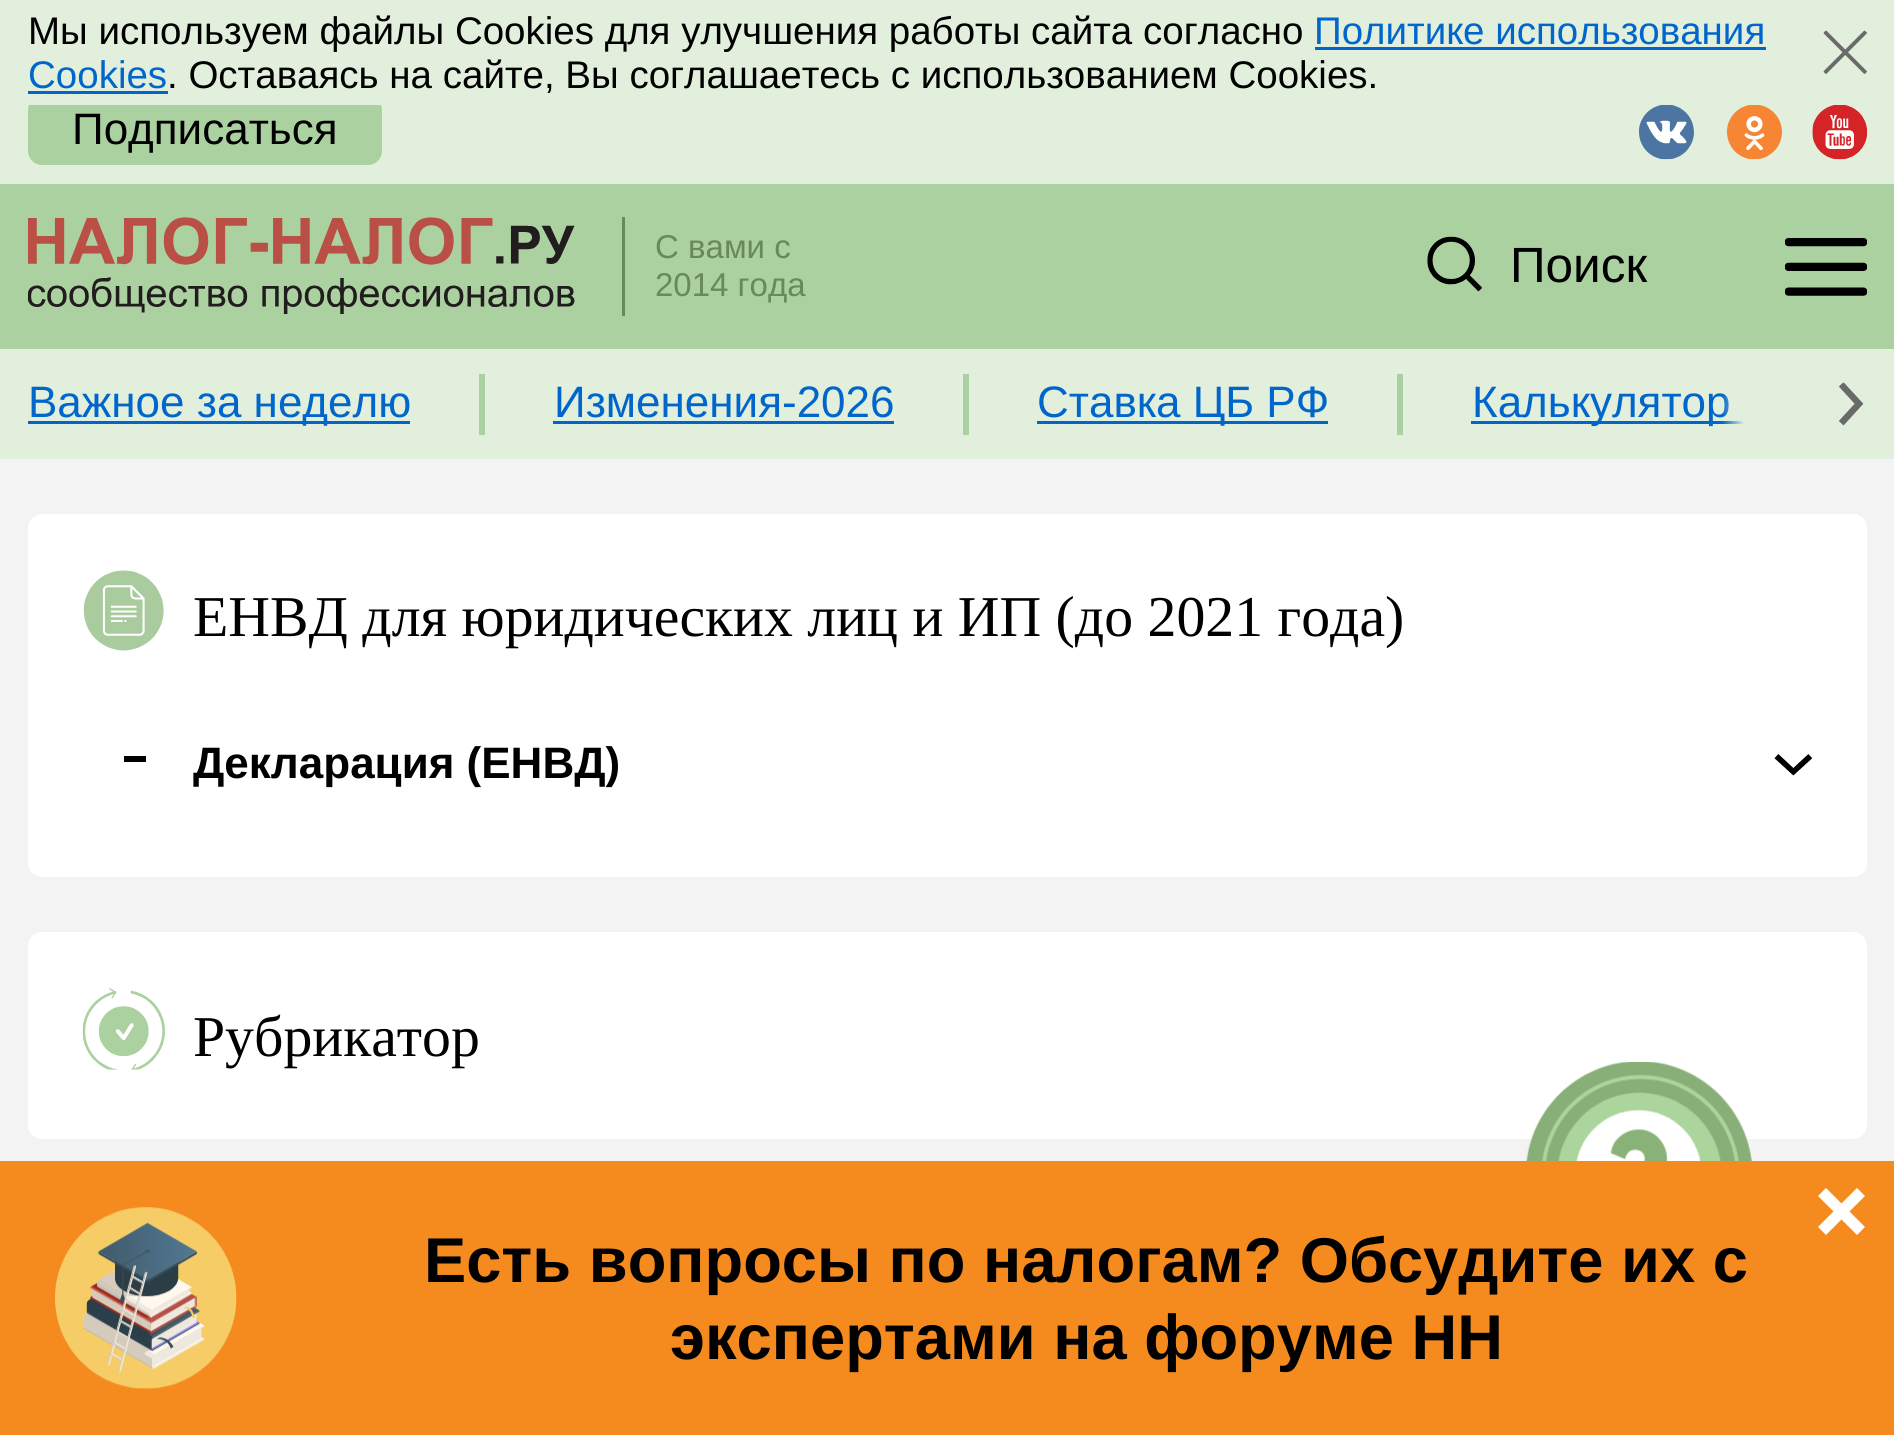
import math
import cairo

surface = cairo.ImageSurface(cairo.FORMAT_RGB24, 1894, 1435)
cr = cairo.Context(surface)
options = cairo.FontOptions()
options.set_hint_metrics(cairo.HINT_METRICS_OFF)
options.set_hint_style(cairo.HINT_STYLE_NONE)
cr.set_font_options(options)
cr.set_miter_limit(4)


def rgb(code):
    cr.set_source_rgb(*(v / 255 for v in bytes.fromhex(code[-6:])))


def rrect(x, y, w, h, r):
    cr.new_sub_path()
    for i, (u, v) in enumerate([(x + w - r, y + h - r), (x + r, y + h - r), (x + r, y + r), (x + w - r, y + r)]):
        cr.arc(u, v, r, i * math.pi / 2, (i + 1) * math.pi / 2)
    cr.close_path()


def image(path, x, y, w, h):
    cr.save()
    cr.set_source_surface(cairo.ImageSurface.create_from_png(path), x, y)
    cr.rectangle(x, y, w, h)
    cr.fill()
    cr.restore()


rgb("#f3f3f3")
cr.paint()
rgb("#e1efdc")
cr.rectangle(0, 105, 1894, 79)
cr.fill()
rgb("#acd1a0")
rrect(28, 96, 354, 69, 14)
cr.fill()
for x, y, w, h, color in [
    (0, 0, 1894, 105, "#e1efdc"),
    (1315, 47, 451, 3, "#0066cc"),
    (28, 91, 140, 3, "#0066cc"),
]:
    rgb(color)
    cr.rectangle(x, y, w, h)
    cr.fill()
image("img/1.png", 1823, 30, 44, 44)
rgb("#ffffff")
rrect(1642, 107, 49, 50, 24.5)
cr.fill()
image("img/2.png", 1639, 105, 55, 55)
rrect(1730, 107, 49, 50, 24.5)
cr.fill()
image("img/3.png", 1727, 105, 55, 55)
cr.arc(1840, 132, 25, 0, 2 * math.pi)
cr.fill()
image("img/4.png", 1812, 105, 55, 55)
rgb("#acd1a0")
cr.rectangle(0, 184, 1894, 165)
cr.fill()
image("img/5.png", 28, 217, 547, 97)
rgb("#688958")
cr.rectangle(622, 217, 3, 99)
cr.fill()
image("img/6.png", 1427, 236, 55, 56)
image("img/7.png", 1785, 238, 82, 58)
for x, y, w, h, color in [
    (0, 349, 1894, 110, "#e1efdc"),
    (479, 374, 6, 61, "#acd1a0"),
    (28, 421, 382, 3, "#0066cc"),
    (963, 374, 6, 61, "#acd1a0"),
    (553, 421, 341, 3, "#0066cc"),
    (1397, 374, 6, 61, "#acd1a0"),
    (1037, 421, 291, 3, "#0066cc"),
    (1471, 421, 273, 3, "#0066cc"),
]:
    rgb(color)
    cr.rectangle(x, y, w, h)
    cr.fill()
image("img/8.png", 1839, 382, 25, 44)
rgb("#ffffff")
rrect(28, 514, 1839, 363, 14)
cr.fill()
image("img/9.png", 83, 570, 81, 81)
rgb("#000000")
cr.rectangle(124, 756, 22, 6)
cr.fill()
image("img/10.png", 1774, 754, 38, 22)
rgb("#ffffff")
rrect(28, 932, 1839, 207, 14)
cr.fill()
image("img/11.png", 82, 988, 83, 82)
image("img/12.png", 1526, 1062, 226, 99)
rgb("#f58a1f")
cr.rectangle(0, 1161, 1894, 274)
cr.fill()
rgb("#ffffff")
cr.new_path()
cr.move_to(1818, 1196)
cr.line_to(1826, 1188)
cr.line_to(1865, 1227)
cr.line_to(1857, 1235)
cr.close_path()
cr.fill()
cr.new_path()
cr.move_to(1857, 1188)
cr.line_to(1865, 1196)
cr.line_to(1826, 1235)
cr.line_to(1818, 1227)
cr.close_path()
cr.fill()
image("img/13.png", 55, 1207, 182, 183)
cr.select_font_face("Liberation Sans")
cr.set_font_size(38.5)
rgb("#000000")
cr.move_to(28, 44)
cr.show_text("Мы используем файлы Cookies для улучшения работы сайта согласно")
rgb("#0066cc")
cr.move_to(1314, 44)
cr.show_text("Политике использования")
cr.move_to(28, 88)
cr.show_text("Cookies")
rgb("#000000")
cr.move_to(167, 88)
cr.show_text(". Оставаясь на сайте, Вы соглашаетесь с использованием Cookies.")
cr.set_font_size(44)
cr.move_to(72, 144)
cr.show_text("Подписаться")
cr.set_font_size(33)
rgb("#688958")
cr.move_to(655, 258)
cr.show_text("С вами с")
cr.move_to(655, 296)
cr.show_text("2014 года")
cr.set_font_size(49.5)
rgb("#000000")
cr.move_to(1510, 282)
cr.show_text("Поиск")
cr.set_font_size(44)
rgb("#0066cc")
for x, y, s in [
    (28, 417, "Важное за неделю"),
    (554, 417, "Изменения-2026"),
    (1037, 417, "Ставка ЦБ РФ"),
    (1472, 417, "Калькулятор"),
]:
    cr.move_to(x, y)
    cr.show_text(s)
gradient = cairo.LinearGradient(1829, 404, 1719, 404)
gradient.add_color_stop_rgba(0.77, 0.882, 0.937, 0.863, 1)
gradient.add_color_stop_rgba(0.97, 0.882, 0.937, 0.863, 0)
cr.set_source(gradient)
cr.rectangle(1723, 394, 21, 30)
cr.fill()
cr.select_font_face("Liberation Serif")
cr.set_font_size(57.75)
rgb("#000000")
cr.move_to(193, 636)
cr.show_text("ЕНВД для юридических лиц и ИП (до 2021 года)")
cr.select_font_face("Liberation Sans", cairo.FONT_SLANT_NORMAL, cairo.FONT_WEIGHT_BOLD)
cr.set_font_size(44)
cr.move_to(193, 778)
cr.show_text("Декларация (ЕНВД)")
cr.select_font_face("Liberation Serif")
cr.set_font_size(57.75)
cr.move_to(193, 1056)
cr.show_text("Рубрикатор")
cr.select_font_face("Liberation Sans", cairo.FONT_SLANT_NORMAL, cairo.FONT_WEIGHT_BOLD)
cr.set_font_size(63.25)
cr.move_to(424, 1282)
cr.show_text("Есть вопросы по налогам? Обсудите их с")
cr.move_to(670, 1359)
cr.show_text("экспертами на форуме НН")
surface.write_to_png("page.png")
